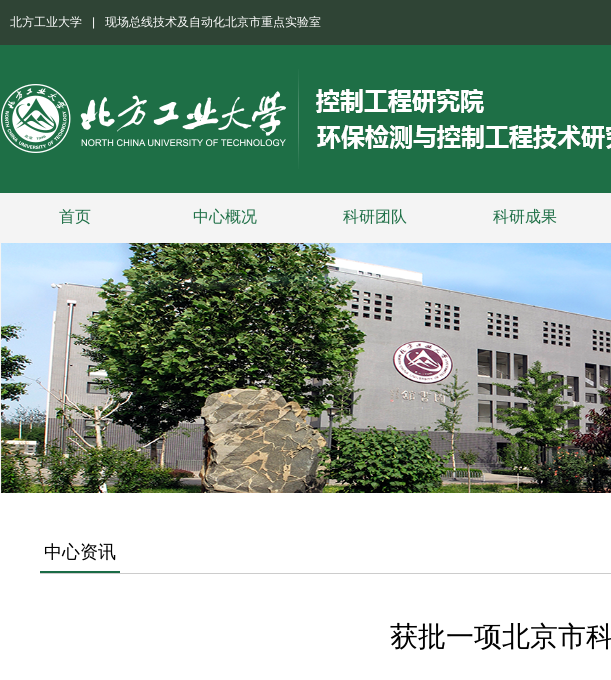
import math
import cairo

surface = cairo.ImageSurface(cairo.FORMAT_RGB24, 611, 680)
cr = cairo.Context(surface)
options = cairo.FontOptions()
options.set_hint_metrics(cairo.HINT_METRICS_OFF)
options.set_hint_style(cairo.HINT_STYLE_NONE)
cr.set_font_options(options)
cr.set_miter_limit(4)


def rgb(code):
    cr.set_source_rgb(*(v / 255 for v in bytes.fromhex(code[-6:])))


def image(path, x, y, w, h):
    cr.save()
    cr.set_source_surface(cairo.ImageSurface.create_from_png(path), x, y)
    cr.rectangle(x, y, w, h)
    cr.fill()
    cr.restore()


rgb("#f4f4f4")
cr.paint()
rgb("#2f4435")
cr.rectangle(0, 0, 611, 45)
cr.fill()
rgb("#1e6f46")
cr.rectangle(0, 45, 611, 148)
cr.fill()
image("img/1.png", 1, 69, 610, 100)
image("img/2.png", 1, 243, 610, 250)
for x, y, w, h, color in [
    (0, 493, 611, 187, "#ffffff"),
    (40, 573, 571, 1, "#cccccc"),
    (40, 571, 80, 2, "#1a6c46"),
]:
    rgb(color)
    cr.rectangle(x, y, w, h)
    cr.fill()
cr.select_font_face("WenQuanYi Zen Hei Medium")
cr.set_font_size(12)
rgb("#ffffff")
cr.move_to(10, 26)
cr.show_text("北方工业大学")
cr.select_font_face("Liberation Sans")
cr.move_to(92, 26)
cr.show_text("|")
cr.select_font_face("WenQuanYi Zen Hei Medium")
cr.move_to(105, 26)
cr.show_text("现场总线技术及自动化北京市重点实验室")
cr.set_font_size(16)
rgb("#1e6f46")
for x, y, s in [
    (59, 222, "首页"),
    (193, 222, "中心概况"),
    (343, 222, "科研团队"),
    (493, 222, "科研成果"),
]:
    cr.move_to(x, y)
    cr.show_text(s)
cr.set_font_size(18)
rgb("#000000")
cr.move_to(44, 558)
cr.show_text("中心资讯")
cr.set_font_size(28)
cr.move_to(390, 646)
cr.show_text("获批一项北京市科")
surface.write_to_png("page.png")
